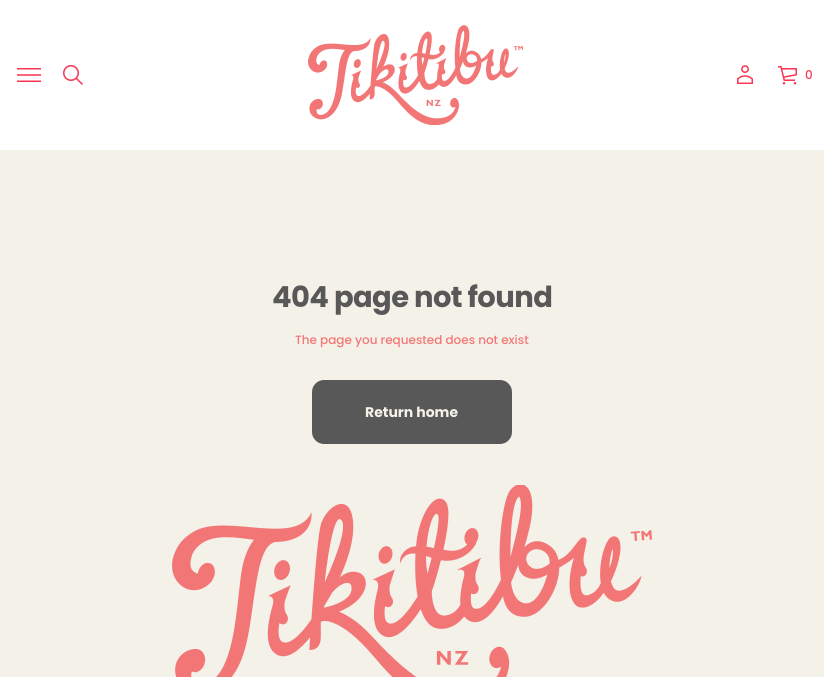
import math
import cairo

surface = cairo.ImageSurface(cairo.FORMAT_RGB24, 824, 677)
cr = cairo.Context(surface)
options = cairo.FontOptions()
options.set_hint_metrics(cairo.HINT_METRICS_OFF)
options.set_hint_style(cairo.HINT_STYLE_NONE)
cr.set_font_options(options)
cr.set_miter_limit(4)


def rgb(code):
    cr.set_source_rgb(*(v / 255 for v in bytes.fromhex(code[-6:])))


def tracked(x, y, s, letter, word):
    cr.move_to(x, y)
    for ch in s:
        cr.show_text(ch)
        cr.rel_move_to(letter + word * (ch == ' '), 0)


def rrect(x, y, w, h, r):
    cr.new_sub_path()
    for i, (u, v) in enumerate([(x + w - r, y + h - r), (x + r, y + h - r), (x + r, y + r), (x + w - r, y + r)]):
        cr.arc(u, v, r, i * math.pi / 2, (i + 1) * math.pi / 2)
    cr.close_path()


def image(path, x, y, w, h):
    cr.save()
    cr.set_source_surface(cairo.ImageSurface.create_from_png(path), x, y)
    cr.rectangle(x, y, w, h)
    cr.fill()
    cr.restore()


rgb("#f3f1e8")
cr.paint()
rgb("#ffffff")
cr.rectangle(0, 0, 824, 150)
cr.fill()
image("img/1.png", 17, 68, 24, 14)
image("img/2.png", 63, 65, 20, 20)
image("img/3.png", 308, 25, 215, 100)
image("img/4.png", 737, 65, 16, 19)
image("img/5.png", 778, 66, 19, 19)
rgb("#585858")
rrect(312, 380, 200, 64, 12)
cr.fill()
image("img/6.png", 172, 485, 480, 192)
cr.select_font_face("Poppins Medium")
cr.set_font_size(12)
rgb("#f83552")
cr.move_to(805, 79)
cr.show_text("0")
cr.select_font_face("Poppins", cairo.FONT_SLANT_NORMAL, cairo.FONT_WEIGHT_BOLD)
cr.set_font_size(29)
rgb("#585858")
tracked(272, 307, "404 page not found", -0.6, 0)
cr.select_font_face("Poppins Medium")
cr.set_font_size(12)
rgb("#f47777")
cr.move_to(295, 344)
cr.show_text("The page you requested does not exist")
cr.select_font_face("Poppins", cairo.FONT_SLANT_NORMAL, cairo.FONT_WEIGHT_BOLD)
cr.set_font_size(14)
rgb("#f3f1e8")
cr.move_to(365, 417)
cr.show_text("Return home")
surface.write_to_png("page.png")
